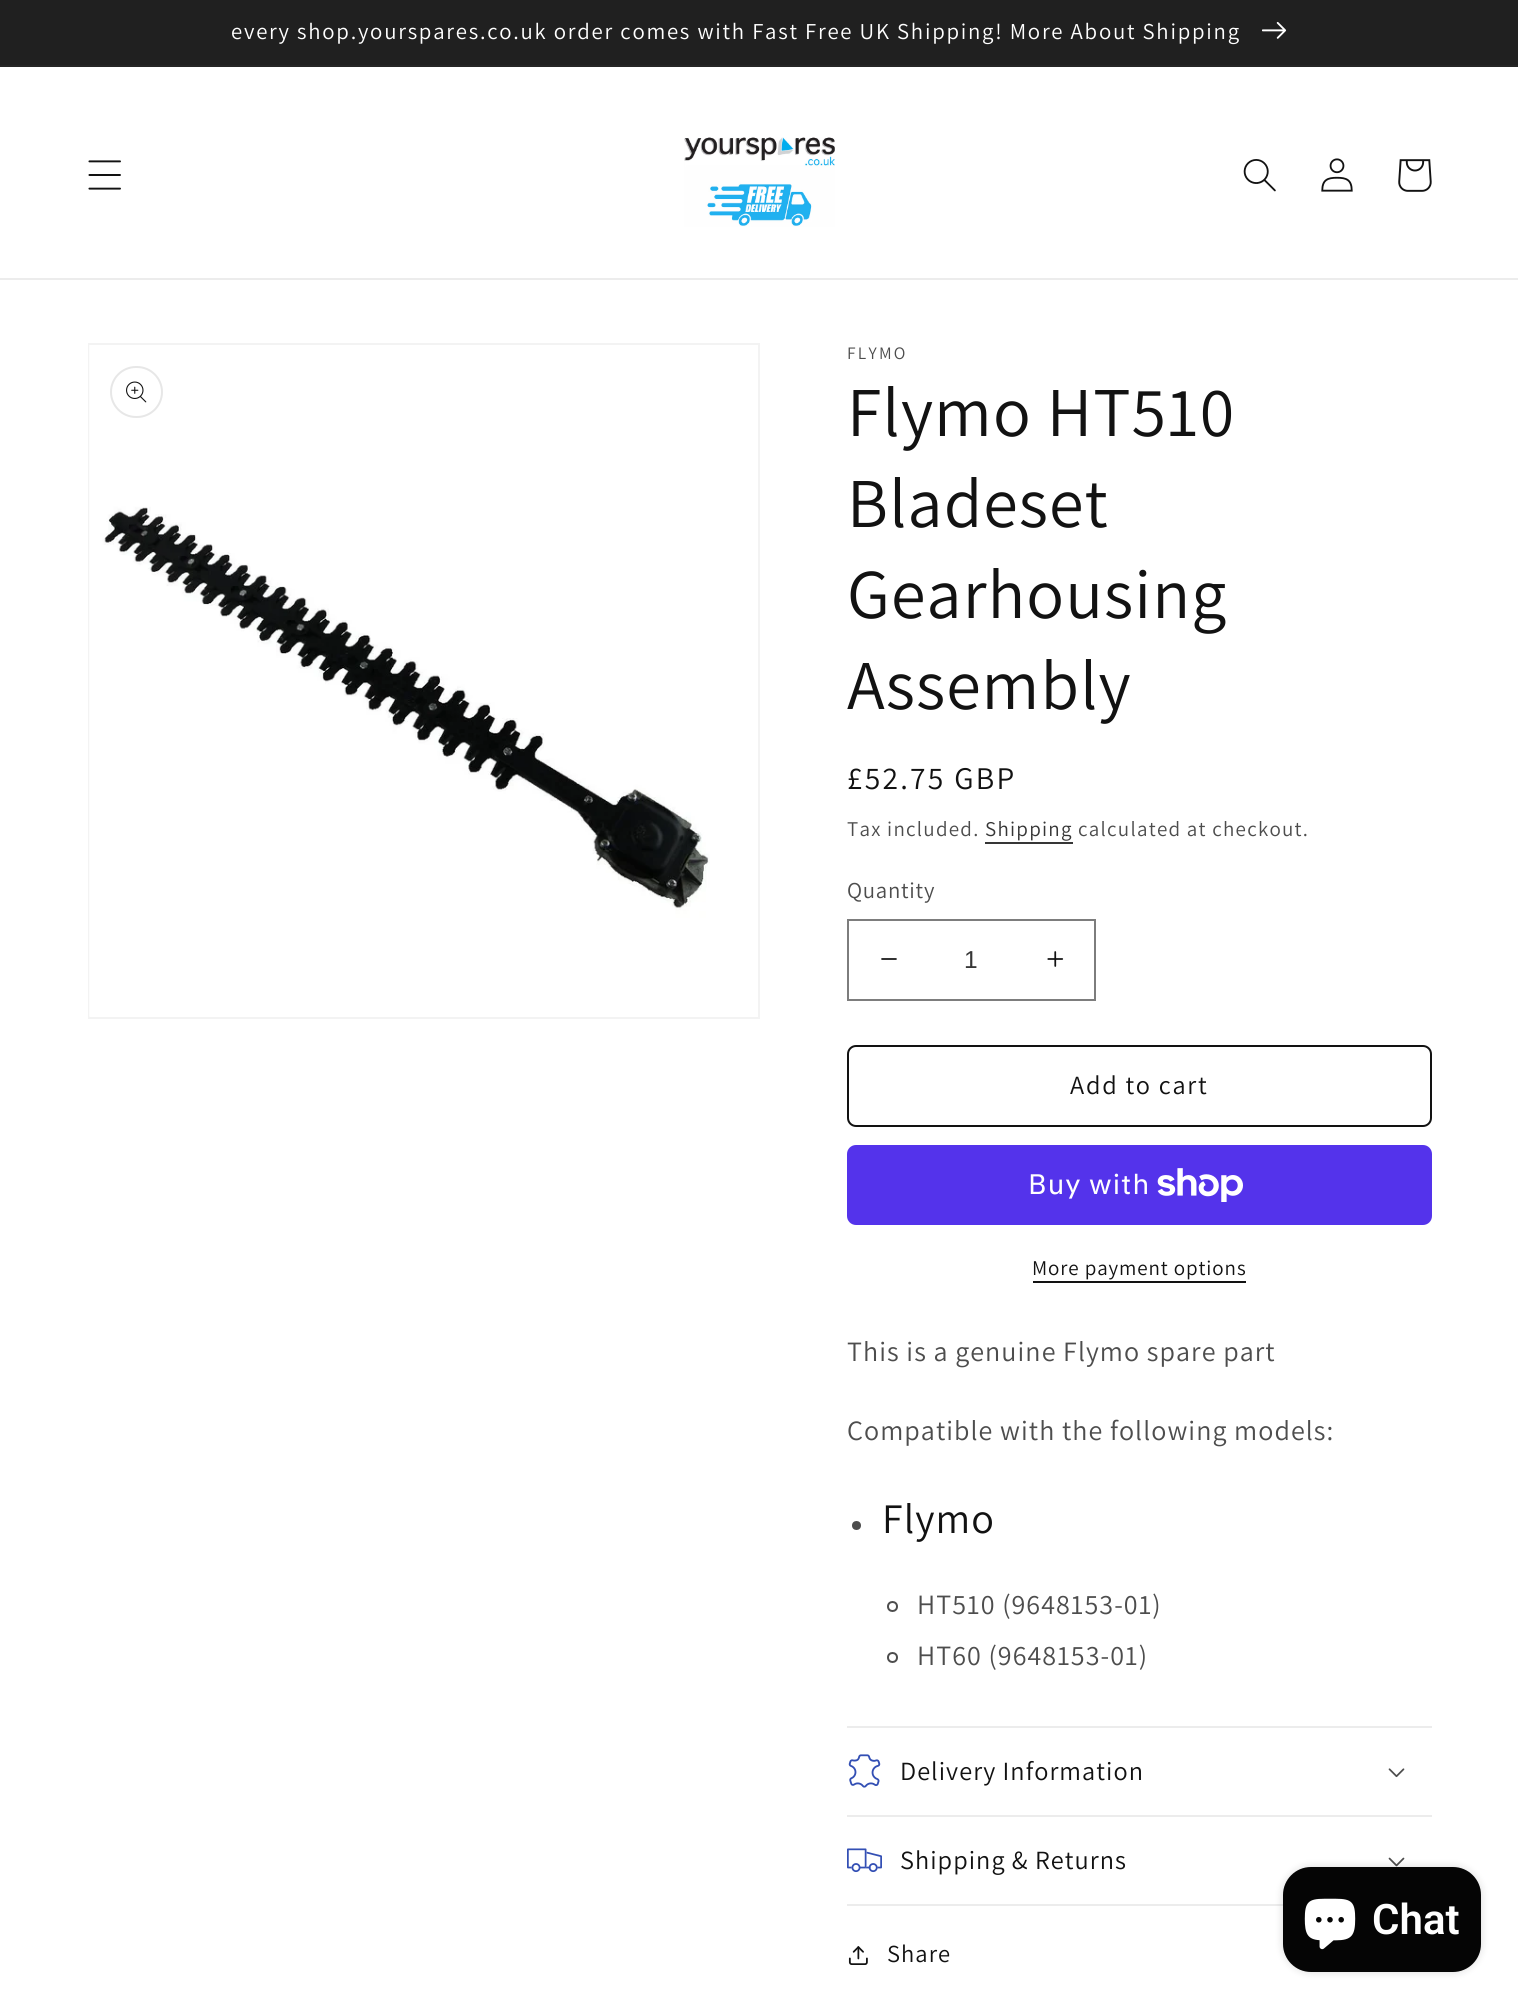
import math
import cairo

surface = cairo.ImageSurface(cairo.FORMAT_RGB24, 1518, 2009)
cr = cairo.Context(surface)
options = cairo.FontOptions()
options.set_hint_metrics(cairo.HINT_METRICS_OFF)
options.set_hint_style(cairo.HINT_STYLE_NONE)
cr.set_font_options(options)
cr.set_miter_limit(4)


def rgb(code):
    cr.set_source_rgb(*(v / 255 for v in bytes.fromhex(code[-6:])))


def tracked(x, y, s, letter, word):
    cr.move_to(x, y)
    for ch in s:
        cr.show_text(ch)
        cr.rel_move_to(letter + word * (ch == ' '), 0)


def rrect(x, y, w, h, r):
    cr.new_sub_path()
    for i, (u, v) in enumerate([(x + w - r, y + h - r), (x + r, y + h - r), (x + r, y + r), (x + w - r, y + r)]):
        cr.arc(u, v, r, i * math.pi / 2, (i + 1) * math.pi / 2)
    cr.close_path()


def soft_shadow(x, y, w, h, r, blur, alpha):
    cr.push_group_with_content(cairo.CONTENT_ALPHA)
    cr.set_operator(cairo.OPERATOR_SOURCE)
    for i in range(15, -16, -2):
        e = blur * i / 6
        if min(w, h) + 2 * e > 0:
            cr.set_source_rgba(0, 0, 0, alpha * math.erfc((i - 1) / 8.5) / 2)
            rrect(x - e, y - e, w + 2 * e, h + 2 * e, max(0, min(r + e + blur * .6, min(w, h) / 2 + e)))
            cr.fill()
    cr.mask(cr.pop_group())


def image(path, x, y, w, h):
    cr.save()
    cr.set_source_surface(cairo.ImageSurface.create_from_png(path), x, y)
    cr.rectangle(x, y, w, h)
    cr.fill()
    cr.restore()


rgb("#ffffff")
cr.paint()
rgb("#252525")
cr.rectangle(0, 65, 1518, 2)
cr.fill()
rgb("#202020")
cr.rectangle(0, 0, 1518, 65)
cr.fill()
image("img/1.png", 1262, 21, 25, 18)
rgb("#ececec")
cr.rectangle(0, 278, 1518, 2)
cr.fill()
image("img/2.png", 88, 160, 33, 30)
image("img/3.png", 684, 137, 151, 90)
image("img/4.png", 1243, 159, 33, 33)
image("img/5.png", 1321, 158, 32, 34)
image("img/6.png", 1398, 159, 34, 33)
cr.rectangle(89, 344, 670, 674)
rgb("#f3f3f3")
cr.stroke()
image("img/7.png", 89, 345, 621, 672)
rrect(111, 367, 51, 50, 25)
rgb("#e7e7e7")
cr.stroke()
image("img/8.png", 126, 381, 21, 22)
rgb("#363636")
cr.rectangle(985, 842, 88, 2)
cr.fill()
image("img/9.png", 881, 958, 16, 2)
image("img/10.png", 1047, 951, 17, 16)
cr.rectangle(848, 920, 247, 80)
rgb("#7d7d7d")
cr.stroke()
rrect(848, 1046, 583, 80, 8)
rgb("#121212")
cr.stroke()
rgb("#5433eb")
rrect(847, 1145, 585, 80, 9)
cr.fill()
image("img/11.png", 1157, 1168, 86, 34)
rgb("#121212")
cr.rectangle(1033, 1281, 213, 2)
cr.fill()
rgb("#4d4d4d")
cr.arc(856.5, 1525.5, 4.5, 0, 2 * math.pi)
cr.fill()
cr.arc(892.5, 1606.5, 4.5, 0, 2 * math.pi)
cr.stroke()
cr.arc(892.5, 1657.5, 4.5, 0, 2 * math.pi)
cr.stroke()
rgb("#ececec")
cr.rectangle(847, 1726, 585, 2)
cr.fill()
cr.rectangle(847, 1815, 585, 2)
cr.fill()
image("img/12.png", 848, 1754, 33, 34)
image("img/13.png", 1388, 1768, 17, 10)
cr.rectangle(847, 1904, 436, 2)
cr.fill()
image("img/14.png", 847, 1848, 35, 25)
image("img/15.png", 1388, 1857, 17, 10)
image("img/16.png", 848, 1946, 20, 19)
rgb("#000000")
soft_shadow(1283, 1867, 198, 105, 28, 4.5, 0.15)
rgb("#050505")
rrect(1283, 1867, 198, 105, 28)
cr.fill()
image("img/17.png", 1304, 1898, 52, 52)
cr.select_font_face("Assistant")
cr.set_font_size(22.75)
rgb("#ffffff")
tracked(231, 39, "every shop.yourspares.co.uk order comes with Fast Free UK Shipping! More About Shipping", 1.75, 0)
cr.set_font_size(17.5)
rgb("#4d4d4d")
tracked(847, 359, "FLYMO", 2.25, 0)
cr.set_font_size(70)
rgb("#121212")
for x, y, s in [
    (847, 436, "Flymo HT510"),
    (847, 527, "Bladeset"),
    (847, 618, "Gearhousing"),
    (847, 709, "Assembly"),
]:
    tracked(x, y, s, 1.05, 0)
cr.set_font_size(31.5)
tracked(847, 789, "£52.75 GBP", 2.25, 0)
cr.set_font_size(21)
rgb("#4d4d4d")
tracked(847, 836, "Tax included.", 1.25, 0)
rgb("#363636")
tracked(985, 836, "Shipping", 1.25, 0)
rgb("#4d4d4d")
tracked(1078, 836, "calculated at checkout.", 1.25, 0)
cr.set_font_size(22.75)
tracked(847, 898, "Quantity", 0.75, 0)
cr.select_font_face("Liberation Sans")
cr.set_font_size(24.5)
rgb("#363636")
cr.move_to(964, 968)
cr.show_text("1")
cr.select_font_face("Assistant")
cr.set_font_size(26.25)
rgb("#121212")
tracked(1070, 1094, "Add to cart", 1.75, 0)
cr.select_font_face("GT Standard")
cr.set_font_size(28)
rgb("#ffffff")
tracked(1028, 1194, "Buy with", 1.05, 0)
cr.select_font_face("Assistant")
cr.set_font_size(21)
rgb("#121212")
tracked(1032, 1275, "More payment options", 0.9, 0)
cr.set_font_size(28)
rgb("#4d4d4d")
tracked(847, 1361, "This is a genuine Flymo spare part", 1.05, 0)
tracked(847, 1440, "Compatible with the following models:", 1.05, 0)
cr.set_font_size(42)
rgb("#121212")
tracked(882, 1533, "Flymo", 1.05, 0)
cr.set_font_size(28)
rgb("#4d4d4d")
tracked(917, 1614, "HT510 (9648153-01)", 1.05, 0)
tracked(917, 1665, "HT60 (9648153-01)", 1.05, 0)
cr.set_font_size(26.25)
rgb("#121212")
tracked(900, 1780, "Delivery Information", 1.05, 0)
tracked(900, 1869, "Shipping & Returns", 1.05, 0)
cr.set_font_size(24.5)
tracked(887, 1962, "Share", 1.05, 0)
cr.select_font_face("Roboto SemiBold")
cr.set_font_size(42)
rgb("#ffffff")
cr.move_to(1372, 1934)
cr.show_text("Chat")
surface.write_to_png("page.png")
